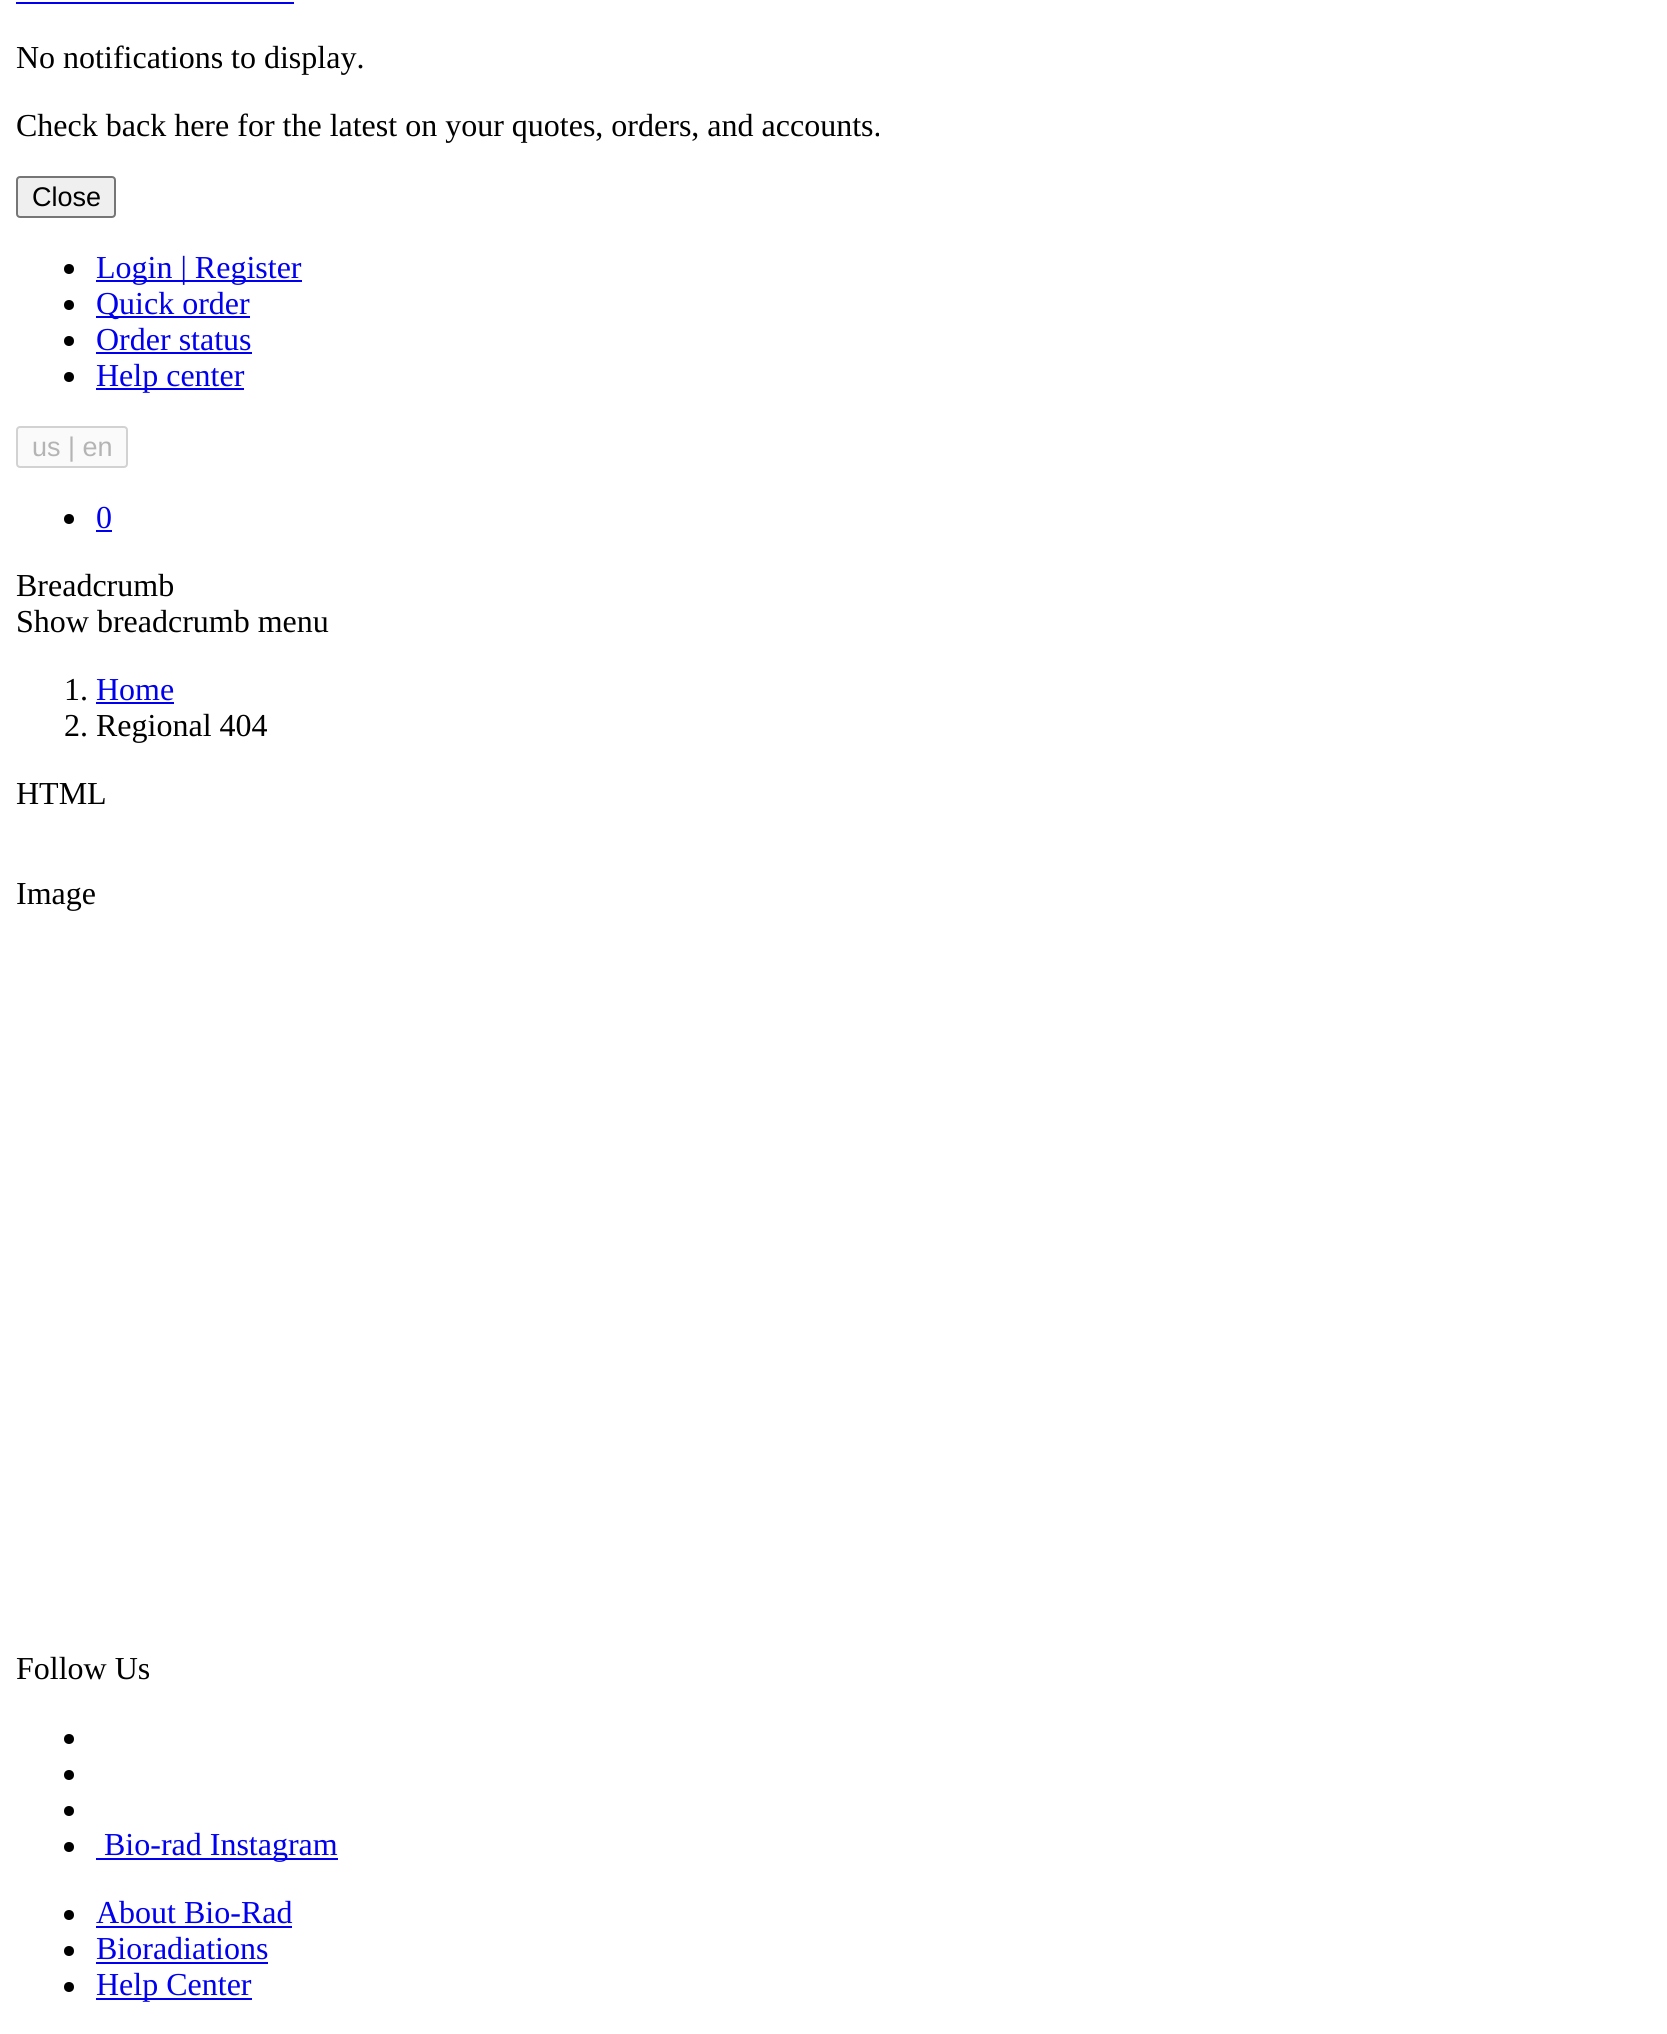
import math
import cairo

surface = cairo.ImageSurface(cairo.FORMAT_RGB24, 1667, 2034)
cr = cairo.Context(surface)
options = cairo.FontOptions()
options.set_hint_metrics(cairo.HINT_METRICS_OFF)
options.set_hint_style(cairo.HINT_STYLE_NONE)
cr.set_font_options(options)
cr.set_miter_limit(4)


def rgb(code):
    cr.set_source_rgb(*(v / 255 for v in bytes.fromhex(code[-6:])))


def rrect(x, y, w, h, r):
    cr.new_sub_path()
    for i, (u, v) in enumerate([(x + w - r, y + h - r), (x + r, y + h - r), (x + r, y + r), (x + w - r, y + r)]):
        cr.arc(u, v, r, i * math.pi / 2, (i + 1) * math.pi / 2)
    cr.close_path()


rgb("#ffffff")
cr.paint()
rgb("#0000ee")
cr.rectangle(16, 2, 278, 2)
cr.fill()
rgb("#efefef")
rrect(17, 177, 98, 40, 3)
cr.fill_preserve()
rgb("#767676")
cr.stroke()
rgb("#000000")
cr.arc(69, 269, 5, 0, 2 * math.pi)
cr.fill()
rgb("#0000ee")
cr.rectangle(96, 280, 206, 2)
cr.fill()
rgb("#000000")
cr.arc(69, 305, 5, 0, 2 * math.pi)
cr.fill()
rgb("#0000ee")
cr.rectangle(96, 316, 154, 2)
cr.fill()
rgb("#000000")
cr.arc(69, 341, 5, 0, 2 * math.pi)
cr.fill()
rgb("#0000ee")
cr.rectangle(96, 352, 156, 2)
cr.fill()
rgb("#000000")
cr.arc(69, 377, 5, 0, 2 * math.pi)
cr.fill()
rgb("#0000ee")
cr.rectangle(96, 388, 148, 2)
cr.fill()
rgb("#fafafa")
rrect(17, 427, 110, 40, 3)
cr.fill_preserve()
rgb("#d2d2d2")
cr.stroke()
rgb("#000000")
cr.arc(69, 519, 5, 0, 2 * math.pi)
cr.fill()
rgb("#0000ee")
cr.rectangle(96, 530, 16, 2)
cr.fill()
cr.rectangle(96, 702, 78, 2)
cr.fill()
rgb("#000000")
cr.arc(69, 1739, 5, 0, 2 * math.pi)
cr.fill()
cr.arc(69, 1775, 5, 0, 2 * math.pi)
cr.fill()
cr.arc(69, 1811, 5, 0, 2 * math.pi)
cr.fill()
cr.arc(69, 1847, 5, 0, 2 * math.pi)
cr.fill()
rgb("#0000ee")
cr.rectangle(96, 1858, 242, 2)
cr.fill()
rgb("#000000")
cr.arc(69, 1915, 5, 0, 2 * math.pi)
cr.fill()
rgb("#0000ee")
cr.rectangle(96, 1926, 196, 2)
cr.fill()
rgb("#000000")
cr.arc(69, 1951, 5, 0, 2 * math.pi)
cr.fill()
rgb("#0000ee")
cr.rectangle(96, 1962, 172, 2)
cr.fill()
rgb("#000000")
cr.arc(69, 1987, 5, 0, 2 * math.pi)
cr.fill()
rgb("#0000ee")
cr.rectangle(96, 1998, 156, 2)
cr.fill()
cr.select_font_face("Liberation Serif")
cr.set_font_size(32)
rgb("#000000")
cr.move_to(16, 68)
cr.show_text("No notifications to display.")
cr.move_to(16, 136)
cr.show_text("Check back here for the latest on your quotes, orders, and accounts.")
cr.select_font_face("Liberation Sans")
cr.set_font_size(27)
cr.move_to(32, 206)
cr.show_text("Close")
cr.select_font_face("Liberation Serif")
cr.set_font_size(32)
rgb("#0000ee")
for x, y, s in [
    (96, 278, "Login | Register"),
    (96, 314, "Quick order"),
    (96, 350, "Order status"),
    (96, 386, "Help center"),
]:
    cr.move_to(x, y)
    cr.show_text(s)
cr.select_font_face("Liberation Sans")
cr.set_font_size(27)
rgb("#b4b4b4")
cr.move_to(32, 456)
cr.show_text("us | en")
cr.select_font_face("Liberation Serif")
cr.set_font_size(32)
rgb("#0000ee")
cr.move_to(96, 528)
cr.show_text("0")
rgb("#000000")
for x, y, s in [
    (16, 596, "Breadcrumb"),
    (16, 632, "Show breadcrumb menu"),
    (64, 700, "1."),
]:
    cr.move_to(x, y)
    cr.show_text(s)
rgb("#0000ee")
cr.move_to(96, 700)
cr.show_text("Home")
rgb("#000000")
for x, y, s in [
    (64, 736, "2. Regional 404"),
    (16, 804, "HTML"),
    (16, 904, "Image"),
    (16, 1679, "Follow Us"),
]:
    cr.move_to(x, y)
    cr.show_text(s)
rgb("#0000ee")
for x, y, s in [
    (104, 1855, "Bio-rad Instagram"),
    (96, 1923, "About Bio-Rad"),
    (96, 1959, "Bioradiations"),
    (96, 1995, "Help Center"),
]:
    cr.move_to(x, y)
    cr.show_text(s)
surface.write_to_png("page.png")
